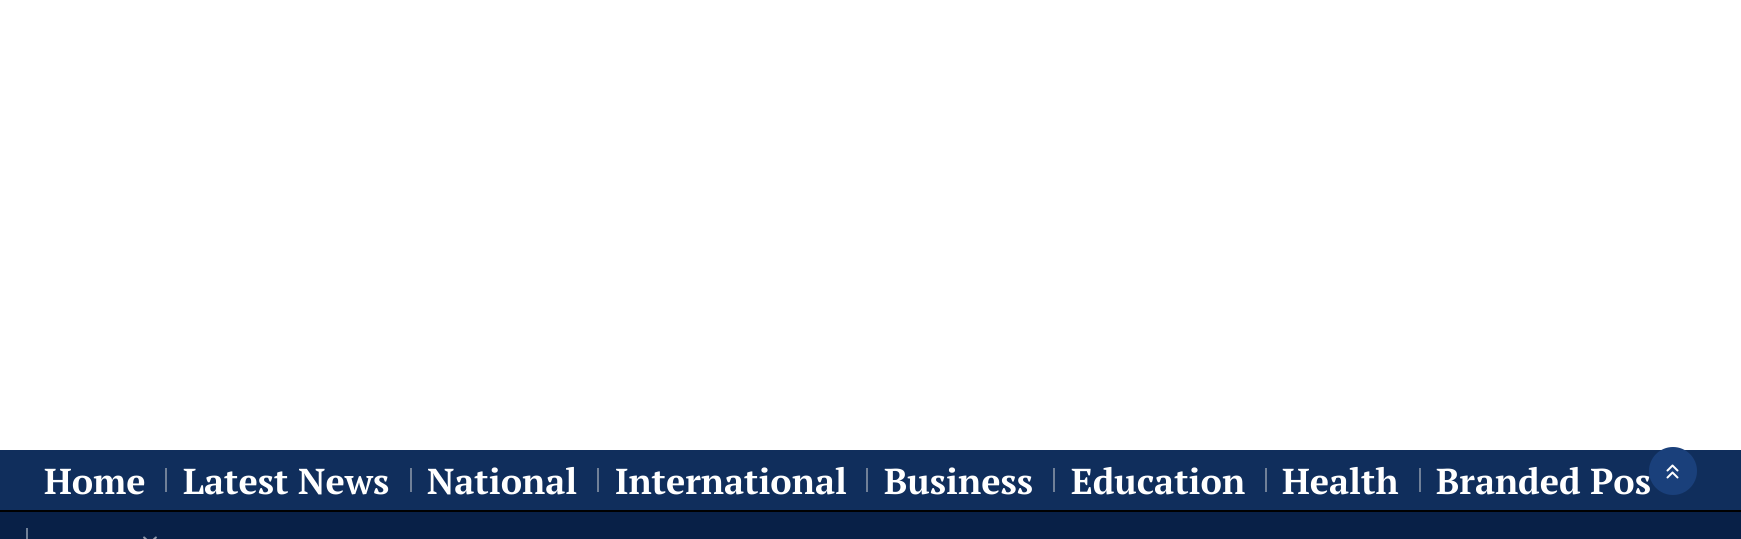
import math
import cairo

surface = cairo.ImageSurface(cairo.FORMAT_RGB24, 1741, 539)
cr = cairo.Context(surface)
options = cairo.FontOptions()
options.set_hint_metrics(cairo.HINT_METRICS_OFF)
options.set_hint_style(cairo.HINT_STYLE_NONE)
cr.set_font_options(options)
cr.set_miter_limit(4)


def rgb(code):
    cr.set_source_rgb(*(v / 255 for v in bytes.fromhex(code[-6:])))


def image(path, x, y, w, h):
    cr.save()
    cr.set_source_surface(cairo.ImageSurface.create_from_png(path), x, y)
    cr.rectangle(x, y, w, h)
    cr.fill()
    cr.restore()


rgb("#082047")
cr.paint()
for x, y, w, h, color in [
    (0, 0, 1741, 450, "#ffffff"),
    (0, 510, 1741, 2, "#000000"),
    (0, 450, 1741, 60, "#102e5c"),
    (165, 468, 2, 24, "#708098"),
    (410, 468, 2, 24, "#708098"),
    (597, 468, 2, 24, "#708098"),
    (866, 468, 2, 24, "#708098"),
    (1053, 468, 2, 24, "#708098"),
    (1265, 468, 2, 24, "#708098"),
    (1419, 468, 2, 24, "#708098"),
    (26, 528, 2, 11, "#708098"),
]:
    rgb(color)
    cr.rectangle(x, y, w, h)
    cr.fill()
image("img/1.png", 143, 536, 14, 3)
cr.select_font_face("PT Serif", cairo.FONT_SLANT_NORMAL, cairo.FONT_WEIGHT_BOLD)
cr.set_font_size(36)
rgb("#ffffff")
for x, y, s in [
    (44, 494, "Home"),
    (183, 494, "Latest News"),
    (427, 494, "National"),
    (615, 494, "International"),
    (884, 494, "Business"),
    (1071, 494, "Education"),
    (1282, 494, "Health"),
    (1436, 494, "Branded Pos"),
]:
    cr.move_to(x, y)
    cr.show_text(s)
rgb("#1a407b")
cr.new_path()
cr.arc(1673, 471, 24, 0, 2 * math.pi)
cr.fill()
image("img/2.png", 1666, 464, 13, 15)
surface.write_to_png("page.png")
